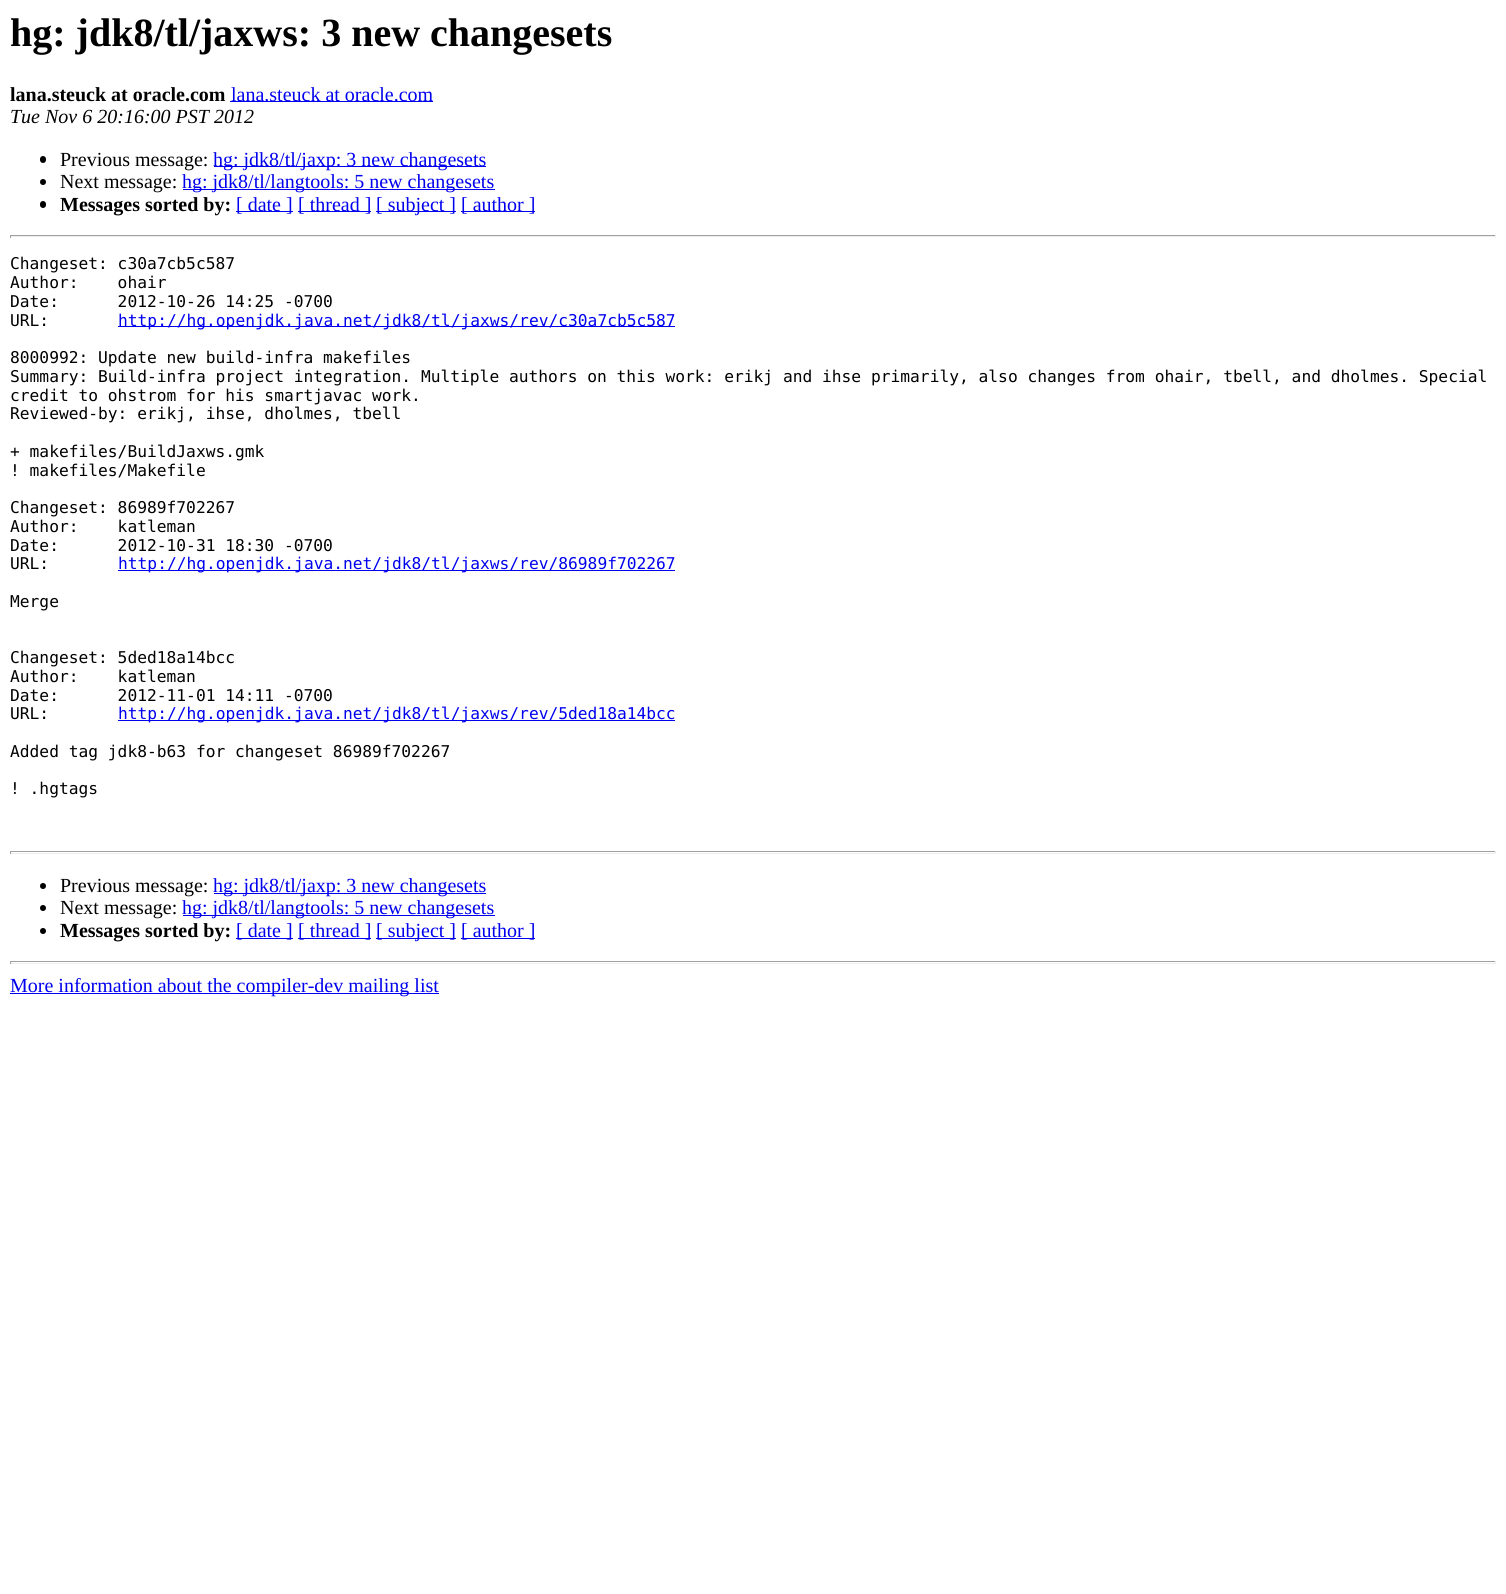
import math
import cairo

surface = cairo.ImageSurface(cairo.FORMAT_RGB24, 1506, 1594)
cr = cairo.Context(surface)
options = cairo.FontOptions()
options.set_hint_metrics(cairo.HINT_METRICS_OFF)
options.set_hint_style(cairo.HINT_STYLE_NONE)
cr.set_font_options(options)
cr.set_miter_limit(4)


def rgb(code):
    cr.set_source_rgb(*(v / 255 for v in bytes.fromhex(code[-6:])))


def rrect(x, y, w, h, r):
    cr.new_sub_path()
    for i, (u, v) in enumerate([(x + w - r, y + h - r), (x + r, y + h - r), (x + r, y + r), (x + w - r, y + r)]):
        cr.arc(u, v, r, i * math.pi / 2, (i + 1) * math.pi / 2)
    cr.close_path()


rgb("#ffffff")
cr.paint()
rgb("#0000ee")
cr.rectangle(230, 101, 203, 1)
cr.fill()
rgb("#000000")
rrect(40, 156, 6, 7, 3)
cr.fill()
rgb("#0000ee")
cr.rectangle(214, 166, 272, 1)
cr.fill()
rgb("#000000")
cr.arc(43, 182, 3, 0, 2 * math.pi)
cr.fill()
rgb("#0000ee")
cr.rectangle(183, 189, 312, 1)
cr.fill()
rgb("#000000")
rrect(40, 201, 6, 7, 3)
cr.fill()
for x, y, w, h, color in [
    (236, 211, 57, 1, "#0000ee"),
    (298, 211, 73, 1, "#0000ee"),
    (376, 211, 80, 1, "#0000ee"),
    (461, 211, 74, 1, "#0000ee"),
    (10, 235, 1486, 1, "#9f9f9f"),
    (1495, 235, 1, 3, "#eeeeee"),
    (10, 236, 1486, 1, "#eeeeee"),
    (10, 235, 1, 3, "#9f9f9f"),
    (118, 326, 557, 1, "#0000ee"),
    (118, 570, 557, 1, "#0000ee"),
    (118, 720, 557, 1, "#0000ee"),
    (10, 851, 1486, 1, "#9f9f9f"),
    (1495, 851, 1, 3, "#eeeeee"),
    (10, 853, 1486, 1, "#eeeeee"),
    (10, 851, 1, 3, "#9f9f9f"),
]:
    rgb(color)
    cr.rectangle(x, y, w, h)
    cr.fill()
rgb("#000000")
cr.arc(43, 886, 3, 0, 2 * math.pi)
cr.fill()
rgb("#0000ee")
cr.rectangle(214, 893, 272, 1)
cr.fill()
rgb("#000000")
cr.arc(43, 908, 3, 0, 2 * math.pi)
cr.fill()
rgb("#0000ee")
cr.rectangle(183, 915, 312, 1)
cr.fill()
rgb("#000000")
cr.arc(43, 931, 3, 0, 2 * math.pi)
cr.fill()
for x, y, w, h, color in [
    (236, 938, 57, 1, "#0000ee"),
    (298, 938, 73, 1, "#0000ee"),
    (376, 938, 80, 1, "#0000ee"),
    (461, 938, 74, 1, "#0000ee"),
    (10, 961, 1486, 1, "#9f9f9f"),
    (1495, 961, 1, 3, "#eeeeee"),
    (10, 963, 1486, 1, "#eeeeee"),
    (10, 961, 1, 3, "#9f9f9f"),
    (10, 993, 429, 1, "#0000ee"),
]:
    rgb(color)
    cr.rectangle(x, y, w, h)
    cr.fill()
cr.select_font_face("Liberation Serif", cairo.FONT_SLANT_NORMAL, cairo.FONT_WEIGHT_BOLD)
cr.set_font_size(40)
rgb("#000000")
cr.move_to(10, 46)
cr.show_text("hg: jdk8/tl/jaxws: 3 new changesets")
cr.set_font_size(20)
cr.move_to(10, 101)
cr.show_text("lana.steuck at oracle.com")
cr.select_font_face("Liberation Serif")
rgb("#0000ee")
cr.move_to(231, 101)
cr.show_text("lana.steuck at oracle.com")
cr.select_font_face("Liberation Serif", cairo.FONT_SLANT_ITALIC)
rgb("#000000")
cr.move_to(10, 123)
cr.show_text("Tue Nov 6 20:16:00 PST 2012")
cr.select_font_face("Liberation Serif")
cr.move_to(60, 166)
cr.show_text("Previous message:")
rgb("#0000ee")
cr.move_to(213, 166)
cr.show_text("hg: jdk8/tl/jaxp: 3 new changesets")
rgb("#000000")
cr.move_to(60, 188)
cr.show_text("Next message:")
rgb("#0000ee")
cr.move_to(182, 188)
cr.show_text("hg: jdk8/tl/langtools: 5 new changesets")
cr.select_font_face("Liberation Serif", cairo.FONT_SLANT_NORMAL, cairo.FONT_WEIGHT_BOLD)
rgb("#000000")
cr.move_to(60, 211)
cr.show_text("Messages sorted by:")
cr.select_font_face("Liberation Serif")
rgb("#0000ee")
for x, y, s in [
    (236, 211, "[ date ]"),
    (298, 211, "[ thread ]"),
    (376, 211, "[ subject ]"),
    (461, 211, "[ author ]"),
]:
    cr.move_to(x, y)
    cr.show_text(s)
cr.select_font_face("DejaVu Sans Mono")
cr.set_font_size(16.25)
rgb("#000000")
for x, y, s in [
    (10, 269, "Changeset: c30a7cb5c587"),
    (10, 288, "Author:    ohair"),
    (10, 307, "Date:      2012-10-26 14:25 -0700"),
    (10, 326, "URL:"),
]:
    cr.move_to(x, y)
    cr.show_text(s)
rgb("#0000ee")
cr.move_to(118, 326)
cr.show_text("http://hg.openjdk.java.net/jdk8/tl/jaxws/rev/c30a7cb5c587")
rgb("#000000")
for x, y, s in [
    (10, 363, "8000992: Update new build-infra makefiles"),
    (10, 382, "Summary: Build-infra project integration. Multiple authors on this work: erikj and ihse primarily, also changes from ohair, tbell, and dholmes. Special"),
    (10, 401, "credit to ohstrom for his smartjavac work."),
    (10, 419, "Reviewed-by: erikj, ihse, dholmes, tbell"),
    (10, 457, "+ makefiles/BuildJaxws.gmk"),
    (10, 476, "! makefiles/Makefile"),
    (10, 513, "Changeset: 86989f702267"),
    (10, 532, "Author:    katleman"),
    (10, 551, "Date:      2012-10-31 18:30 -0700"),
    (10, 569, "URL:"),
]:
    cr.move_to(x, y)
    cr.show_text(s)
rgb("#0000ee")
cr.move_to(118, 569)
cr.show_text("http://hg.openjdk.java.net/jdk8/tl/jaxws/rev/86989f702267")
rgb("#000000")
for x, y, s in [
    (10, 607, "Merge"),
    (10, 663, "Changeset: 5ded18a14bcc"),
    (10, 682, "Author:    katleman"),
    (10, 701, "Date:      2012-11-01 14:11 -0700"),
    (10, 719, "URL:"),
]:
    cr.move_to(x, y)
    cr.show_text(s)
rgb("#0000ee")
cr.move_to(118, 719)
cr.show_text("http://hg.openjdk.java.net/jdk8/tl/jaxws/rev/5ded18a14bcc")
rgb("#000000")
cr.move_to(10, 757)
cr.show_text("Added tag jdk8-b63 for changeset 86989f702267")
cr.move_to(10, 794)
cr.show_text("! .hgtags")
cr.select_font_face("Liberation Serif")
cr.set_font_size(20)
cr.move_to(60, 892)
cr.show_text("Previous message:")
rgb("#0000ee")
cr.move_to(213, 892)
cr.show_text("hg: jdk8/tl/jaxp: 3 new changesets")
rgb("#000000")
cr.move_to(60, 914)
cr.show_text("Next message:")
rgb("#0000ee")
cr.move_to(182, 914)
cr.show_text("hg: jdk8/tl/langtools: 5 new changesets")
cr.select_font_face("Liberation Serif", cairo.FONT_SLANT_NORMAL, cairo.FONT_WEIGHT_BOLD)
rgb("#000000")
cr.move_to(60, 937)
cr.show_text("Messages sorted by:")
cr.select_font_face("Liberation Serif")
rgb("#0000ee")
for x, y, s in [
    (236, 937, "[ date ]"),
    (298, 937, "[ thread ]"),
    (376, 937, "[ subject ]"),
    (461, 937, "[ author ]"),
    (10, 992, "More information about the compiler-dev mailing list"),
]:
    cr.move_to(x, y)
    cr.show_text(s)
surface.write_to_png("page.png")
